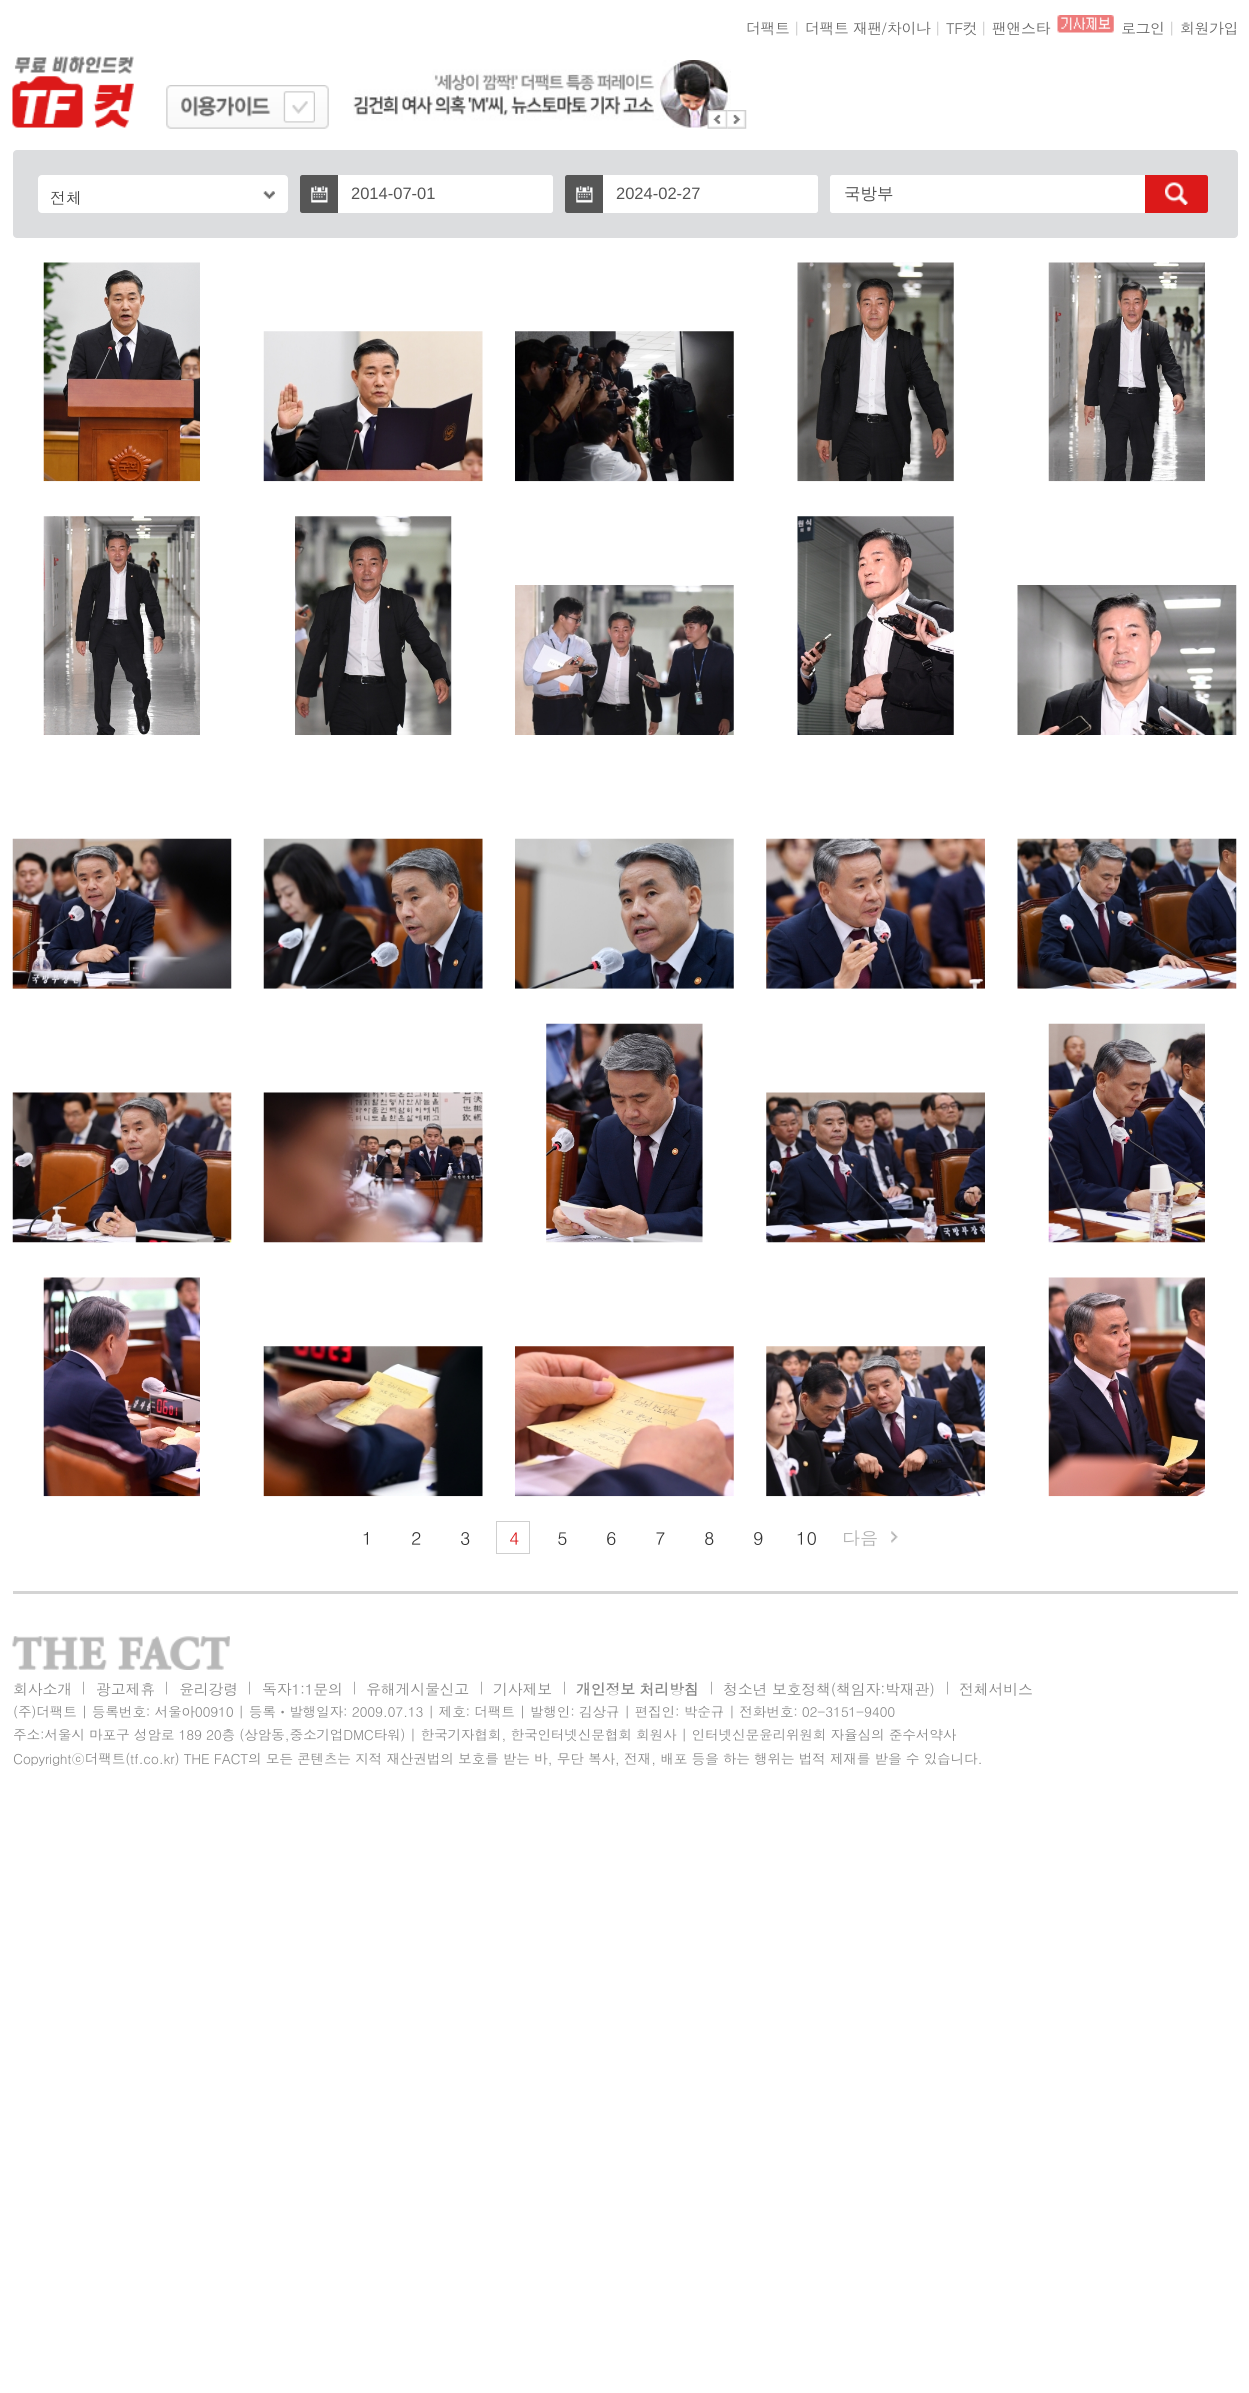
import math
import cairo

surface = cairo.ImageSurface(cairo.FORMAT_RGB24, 1249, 2393)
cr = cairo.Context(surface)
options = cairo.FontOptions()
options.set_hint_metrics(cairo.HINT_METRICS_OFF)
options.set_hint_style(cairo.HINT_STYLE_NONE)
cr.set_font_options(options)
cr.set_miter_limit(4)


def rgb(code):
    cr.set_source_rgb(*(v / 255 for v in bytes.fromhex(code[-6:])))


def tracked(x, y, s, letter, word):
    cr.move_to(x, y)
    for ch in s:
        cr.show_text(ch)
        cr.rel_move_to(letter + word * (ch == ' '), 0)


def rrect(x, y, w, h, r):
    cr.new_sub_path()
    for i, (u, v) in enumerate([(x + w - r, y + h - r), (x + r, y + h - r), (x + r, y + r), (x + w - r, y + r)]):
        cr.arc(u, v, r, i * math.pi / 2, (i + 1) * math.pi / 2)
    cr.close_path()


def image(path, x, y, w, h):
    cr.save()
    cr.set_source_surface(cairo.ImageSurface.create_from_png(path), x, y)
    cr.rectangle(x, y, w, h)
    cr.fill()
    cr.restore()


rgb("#ffffff")
cr.paint()
image("img/1.png", 1057, 15, 57, 18)
image("img/2.png", 12, 56, 122, 72)
image("img/3.png", 166, 85, 163, 44)
image("img/4.png", 283, 91, 32, 32)
image("img/5.png", 353, 60, 378, 68)
image("img/6.png", 707, 110, 21, 19)
image("img/7.png", 727, 110, 20, 19)
rgb("#dcdddf")
rrect(13, 150, 1225, 88, 4)
cr.fill()
rgb("#ffffff")
rrect(38, 175, 250, 38, 4)
cr.fill()
image("img/8.png", 263, 191, 12, 8)
rgb("#565656")
cr.new_path()
cr.move_to(302.5, 175)
cr.line_to(338, 175)
cr.line_to(338, 213)
cr.line_to(302.5, 213)
cr.curve_to(301, 213, 300, 212, 300, 210.5)
cr.line_to(300, 177.5)
cr.curve_to(300, 176, 301, 175, 302.5, 175)
cr.close_path()
cr.fill()
image("img/9.png", 311, 186, 17, 17)
rgb("#ffffff")
cr.new_path()
cr.move_to(338.5, 175.5)
cr.line_to(550.5, 175.5)
cr.curve_to(551.5, 175.5, 552.5, 176.5, 552.5, 177.5)
cr.line_to(552.5, 210.5)
cr.curve_to(552.5, 211.5, 551.5, 212.5, 550.5, 212.5)
cr.line_to(338.5, 212.5)
cr.close_path()
cr.fill_preserve()
cr.set_line_width(1)
cr.stroke()
rgb("#565656")
cr.new_path()
cr.move_to(567.5, 175)
cr.line_to(603, 175)
cr.line_to(603, 213)
cr.line_to(567.5, 213)
cr.curve_to(566, 213, 565, 212, 565, 210.5)
cr.line_to(565, 177.5)
cr.curve_to(565, 176, 566, 175, 567.5, 175)
cr.close_path()
cr.fill()
image("img/9.png", 576, 186, 17, 17)
rgb("#ffffff")
cr.new_path()
cr.move_to(603.5, 175.5)
cr.line_to(815.5, 175.5)
cr.curve_to(816.5, 175.5, 817.5, 176.5, 817.5, 177.5)
cr.line_to(817.5, 210.5)
cr.curve_to(817.5, 211.5, 816.5, 212.5, 815.5, 212.5)
cr.line_to(603.5, 212.5)
cr.close_path()
cr.fill_preserve()
cr.stroke()
cr.new_path()
cr.move_to(832.5, 175.5)
cr.line_to(1144.5, 175.5)
cr.line_to(1144.5, 212.5)
cr.line_to(832.5, 212.5)
cr.curve_to(831.5, 212.5, 830.5, 211.5, 830.5, 210.5)
cr.line_to(830.5, 177.5)
cr.curve_to(830.5, 176.5, 831.5, 175.5, 832.5, 175.5)
cr.close_path()
cr.fill_preserve()
cr.stroke()
rgb("#dc1919")
cr.new_path()
cr.move_to(1145, 175)
cr.line_to(1205.5, 175)
cr.curve_to(1207, 175, 1208, 176, 1208, 177.5)
cr.line_to(1208, 210.5)
cr.curve_to(1208, 212, 1207, 213, 1205.5, 213)
cr.line_to(1145, 213)
cr.close_path()
cr.fill()
image("img/10.png", 1165, 182, 23, 23)
image("img/11.png", 43, 262, 157, 220)
image("img/12.png", 263, 331, 220, 151)
image("img/13.png", 515, 331, 219, 151)
image("img/14.png", 797, 262, 157, 220)
image("img/15.png", 1048, 262, 157, 220)
image("img/16.png", 43, 516, 157, 219)
image("img/17.png", 295, 516, 157, 219)
image("img/18.png", 515, 585, 219, 150)
image("img/19.png", 797, 516, 157, 219)
image("img/20.png", 1017, 585, 220, 150)
image("img/21.png", 12, 838, 220, 151)
image("img/22.png", 263, 838, 220, 151)
image("img/23.png", 515, 838, 219, 151)
image("img/24.png", 766, 838, 219, 151)
image("img/25.png", 1017, 838, 220, 151)
image("img/26.png", 12, 1092, 220, 151)
image("img/27.png", 263, 1092, 220, 151)
image("img/28.png", 546, 1023, 157, 220)
image("img/29.png", 766, 1092, 219, 151)
image("img/30.png", 1048, 1023, 157, 220)
image("img/31.png", 43, 1277, 157, 220)
image("img/32.png", 263, 1346, 220, 151)
image("img/33.png", 515, 1346, 219, 151)
image("img/34.png", 766, 1346, 219, 151)
image("img/35.png", 1048, 1277, 157, 220)
cr.rectangle(496.5, 1521.5, 33, 32)
rgb("#cfcfcf")
cr.stroke()
image("img/36.png", 891, 1531, 7, 12)
rgb("#d4d4d4")
cr.rectangle(13, 1591, 1225, 3)
cr.fill()
image("img/37.png", 12, 1636, 218, 34)
cr.select_font_face("Dotum")
cr.set_font_size(15)
rgb("#666666")
tracked(746, 34, "더팩트", -0.5, 0)
rgb("#c2c2c2")
tracked(793, 34, "|", -0.5, 0)
rgb("#666666")
tracked(805, 34, "더팩트 재팬", -0.5, 0)
rgb("#5e5e5e")
tracked(881, 34, "/", -0.5, 0)
rgb("#666666")
tracked(887, 34, "차이나", -0.5, 0)
rgb("#c2c2c2")
tracked(934, 34, "|", -0.5, 0)
rgb("#666666")
tracked(946, 34, "TF컷", -0.5, 0)
rgb("#c2c2c2")
tracked(980, 34, "|", -0.5, 0)
rgb("#666666")
tracked(992, 34, "팬앤스타", -0.5, 0)
tracked(1121, 34, "로그인", -0.5, 0)
rgb("#c2c2c2")
tracked(1168, 34, "|", -0.5, 0)
rgb("#666666")
tracked(1180, 34, "회원가입", -0.5, 0)
cr.set_font_size(16)
rgb("#444444")
cr.move_to(50, 204)
cr.show_text("전체")
cr.select_font_face("Liberation Sans")
cr.set_font_size(16.5)
rgb("#555555")
cr.move_to(351, 199)
cr.show_text("2014-07-01")
cr.move_to(616, 199)
cr.show_text("2024-02-27")
cr.select_font_face("WenQuanYi Zen Hei Medium")
cr.move_to(844, 199)
cr.show_text("국방부")
cr.select_font_face("Dotum")
cr.set_font_size(18)
rgb("#333333")
for x, y, s in [
    (362, 1545, "1"),
    (411, 1545, "2"),
    (460, 1545, "3"),
]:
    cr.move_to(x, y)
    cr.show_text(s)
rgb("#db191a")
cr.move_to(509, 1545)
cr.show_text("4")
rgb("#333333")
for x, y, s in [
    (557, 1545, "5"),
    (606, 1545, "6"),
    (655, 1545, "7"),
    (704, 1545, "8"),
    (753, 1545, "9"),
    (796, 1545, "10"),
]:
    cr.move_to(x, y)
    cr.show_text(s)
rgb("#b1b1b1")
cr.move_to(842, 1545)
cr.show_text("다음")
cr.set_font_size(15)
rgb("#888888")
tracked(13, 1695, "회사소개", -0.28, 0)
cr.set_font_size(13.75)
rgb("#999999")
tracked(80, 1693, "|", -0.28, 0)
cr.set_font_size(15)
rgb("#888888")
tracked(96, 1695, "광고제휴", -0.28, 0)
cr.set_font_size(13.75)
rgb("#999999")
tracked(163, 1693, "|", -0.28, 0)
cr.set_font_size(15)
rgb("#888888")
tracked(179, 1695, "윤리강령", -0.28, 0)
cr.set_font_size(13.75)
rgb("#999999")
tracked(246, 1693, "|", -0.28, 0)
cr.set_font_size(15)
rgb("#888888")
tracked(262, 1695, "독자1:1문의", -0.28, 0)
cr.set_font_size(13.75)
rgb("#999999")
tracked(351, 1693, "|", -0.28, 0)
cr.set_font_size(15)
rgb("#888888")
tracked(366, 1695, "유해게시물신고", -0.28, 0)
cr.set_font_size(13.75)
rgb("#999999")
tracked(478, 1693, "|", -0.28, 0)
cr.set_font_size(15)
rgb("#888888")
tracked(493, 1695, "기사제보", -0.28, 0)
cr.set_font_size(13.75)
rgb("#999999")
tracked(561, 1693, "|", -0.28, 0)
cr.select_font_face("Dotum", cairo.FONT_SLANT_NORMAL, cairo.FONT_WEIGHT_BOLD)
cr.set_font_size(15)
rgb("#888888")
tracked(576, 1695, "개인정보 처리방침", -0.28, 0)
cr.select_font_face("Dotum")
cr.set_font_size(13.75)
rgb("#999999")
tracked(708, 1693, "|", -0.28, 0)
cr.set_font_size(15)
rgb("#888888")
tracked(723, 1695, "청소년 보호정책(책임자:박재관)", -0.28, 0)
cr.set_font_size(13.75)
rgb("#999999")
tracked(944, 1693, "|", -0.28, 0)
cr.set_font_size(15)
rgb("#888888")
tracked(959, 1695, "전체서비스", -0.28, 0)
cr.set_font_size(13.75)
for x, y, s in [
    (13, 1717, "(주)더팩트 | 등록번호: 서울아00910 | 등록ㆍ발행일자: 2009.07.13 | 제호: 더팩트 | 발행인: 김상규 | 편집인: 박순규 | 전화번호: 02-3151-9400"),
    (13, 1740, "주소:서울시 마포구 성암로 189 20층 (상암동,중소기업DMC타워) | 한국기자협회, 한국인터넷신문협회 회원사 | 인터넷신문윤리위원회 자율심의 준수서약사"),
    (13, 1764, "Copyrightⓒ더팩트(tf.co.kr) THE FACT의 모든 콘텐츠는 지적 재산권법의 보호를 받는 바, 무단 복사, 전재, 배포 등을 하는 행위는 법적 제재를 받을 수 있습니다."),
]:
    tracked(x, y, s, -0.28, 0)
surface.write_to_png("page.png")
